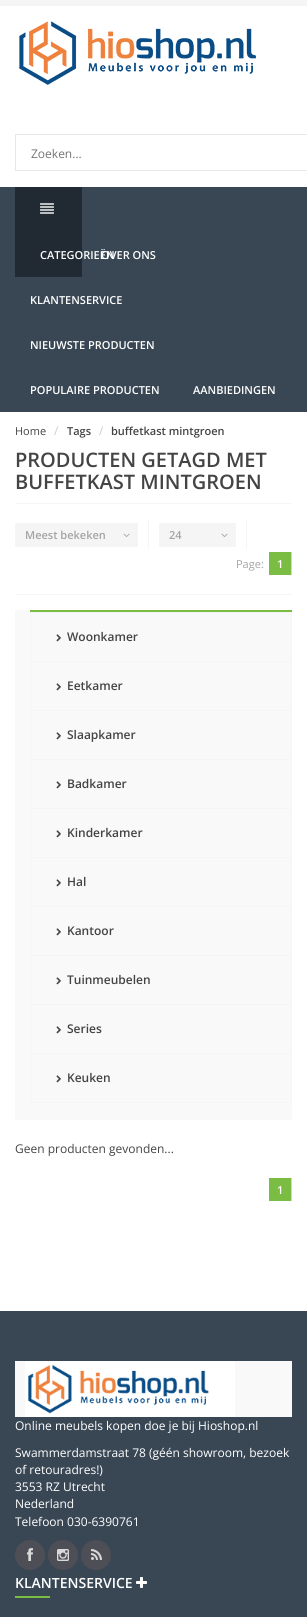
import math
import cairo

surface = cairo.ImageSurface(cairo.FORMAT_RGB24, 307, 1617)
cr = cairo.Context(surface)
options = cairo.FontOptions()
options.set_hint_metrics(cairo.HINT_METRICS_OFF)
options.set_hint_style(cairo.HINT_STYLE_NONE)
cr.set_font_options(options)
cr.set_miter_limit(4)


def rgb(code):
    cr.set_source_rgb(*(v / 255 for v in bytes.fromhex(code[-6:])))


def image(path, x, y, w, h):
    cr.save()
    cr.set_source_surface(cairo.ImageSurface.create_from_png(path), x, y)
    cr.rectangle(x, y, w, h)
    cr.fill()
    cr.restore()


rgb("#ffffff")
cr.paint()
rgb("#f5f5f5")
cr.rectangle(0, 0, 307, 6)
cr.fill()
image("img/1.png", 19, 21, 237, 64)
cr.rectangle(15.5, 134.5, 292, 36)
rgb("#e8e8e8")
cr.set_line_width(1)
cr.stroke()
rgb("#394755")
cr.rectangle(0, 187, 307, 225)
cr.fill()
rgb("#212a33")
cr.rectangle(15, 187, 67, 90)
cr.fill()
image("img/2.png", 40, 203, 14, 11)
for x, y, w, h, color in [
    (15, 503, 277, 1, "#f5f5f5"),
    (15, 594, 277, 1, "#f5f5f5"),
    (148, 519, 1, 30, "#f5f5f5"),
]:
    rgb(color)
    cr.rectangle(x, y, w, h)
    cr.fill()
cr.new_path()
cr.move_to(17, 523)
cr.line_to(116, 523)
cr.line_to(116, 547)
cr.line_to(17, 547)
cr.curve_to(16, 547, 15, 546, 15, 545)
cr.line_to(15, 525)
cr.curve_to(15, 524, 16, 523, 17, 523)
cr.close_path()
cr.fill()
cr.rectangle(116, 523, 22, 24)
cr.fill()
image("img/3.png", 123, 533, 7, 4)
cr.rectangle(246, 519, 1, 30)
cr.fill()
cr.new_path()
cr.move_to(161, 523)
cr.line_to(214, 523)
cr.line_to(214, 547)
cr.line_to(161, 547)
cr.curve_to(160, 547, 159, 546, 159, 545)
cr.line_to(159, 525)
cr.curve_to(159, 524, 160, 523, 161, 523)
cr.close_path()
cr.fill()
cr.rectangle(214, 523, 22, 24)
cr.fill()
image("img/3.png", 221, 533, 7, 4)
for x, y, w, h, color in [
    (269, 552, 22, 23, "#7bbd42"),
    (291, 552, 1, 23, "#d5d5d5"),
    (15, 610, 277, 510, "#f9f9f9"),
    (30, 610, 262, 2, "#7bbd42"),
    (30, 1102, 262, 1, "#f5f5f5"),
    (30, 612, 262, 1, "#f5f5f5"),
    (291, 612, 1, 49, "#f5f5f5"),
    (30, 612, 1, 49, "#f5f5f5"),
]:
    rgb(color)
    cr.rectangle(x, y, w, h)
    cr.fill()
image("img/4.png", 56, 634, 5, 8)
for x, y, w, h, color in [
    (30, 661, 262, 1, "#f5f5f5"),
    (291, 661, 1, 49, "#f5f5f5"),
    (30, 661, 1, 49, "#f5f5f5"),
]:
    rgb(color)
    cr.rectangle(x, y, w, h)
    cr.fill()
image("img/4.png", 56, 683, 5, 8)
for x, y, w, h, color in [
    (30, 710, 262, 1, "#f5f5f5"),
    (291, 710, 1, 49, "#f5f5f5"),
    (30, 710, 1, 49, "#f5f5f5"),
]:
    rgb(color)
    cr.rectangle(x, y, w, h)
    cr.fill()
image("img/4.png", 56, 732, 5, 8)
for x, y, w, h, color in [
    (30, 759, 262, 1, "#f5f5f5"),
    (291, 759, 1, 49, "#f5f5f5"),
    (30, 759, 1, 49, "#f5f5f5"),
]:
    rgb(color)
    cr.rectangle(x, y, w, h)
    cr.fill()
image("img/4.png", 56, 781, 5, 8)
for x, y, w, h, color in [
    (30, 808, 262, 1, "#f5f5f5"),
    (291, 808, 1, 49, "#f5f5f5"),
    (30, 808, 1, 49, "#f5f5f5"),
]:
    rgb(color)
    cr.rectangle(x, y, w, h)
    cr.fill()
image("img/4.png", 56, 830, 5, 8)
for x, y, w, h, color in [
    (30, 857, 262, 1, "#f5f5f5"),
    (291, 857, 1, 49, "#f5f5f5"),
    (30, 857, 1, 49, "#f5f5f5"),
]:
    rgb(color)
    cr.rectangle(x, y, w, h)
    cr.fill()
image("img/4.png", 56, 879, 5, 8)
for x, y, w, h, color in [
    (30, 906, 262, 1, "#f5f5f5"),
    (291, 906, 1, 49, "#f5f5f5"),
    (30, 906, 1, 49, "#f5f5f5"),
]:
    rgb(color)
    cr.rectangle(x, y, w, h)
    cr.fill()
image("img/4.png", 56, 928, 5, 8)
for x, y, w, h, color in [
    (30, 955, 262, 1, "#f5f5f5"),
    (291, 955, 1, 49, "#f5f5f5"),
    (30, 955, 1, 49, "#f5f5f5"),
]:
    rgb(color)
    cr.rectangle(x, y, w, h)
    cr.fill()
image("img/4.png", 56, 977, 5, 8)
for x, y, w, h, color in [
    (30, 1004, 262, 1, "#f5f5f5"),
    (291, 1004, 1, 49, "#f5f5f5"),
    (30, 1004, 1, 49, "#f5f5f5"),
]:
    rgb(color)
    cr.rectangle(x, y, w, h)
    cr.fill()
image("img/4.png", 56, 1026, 5, 8)
for x, y, w, h, color in [
    (30, 1053, 262, 1, "#f5f5f5"),
    (291, 1053, 1, 49, "#f5f5f5"),
    (30, 1053, 1, 49, "#f5f5f5"),
]:
    rgb(color)
    cr.rectangle(x, y, w, h)
    cr.fill()
image("img/4.png", 56, 1075, 5, 8)
for x, y, w, h, color in [
    (269, 1178, 22, 23, "#7bbd42"),
    (291, 1178, 1, 23, "#d5d5d5"),
    (0, 1311, 307, 306, "#394755"),
    (15, 1361, 277, 56, "#f9f9f9"),
]:
    rgb(color)
    cr.rectangle(x, y, w, h)
    cr.fill()
image("img/5.png", 25, 1361, 210, 56)
rgb("#4e4e56")
cr.arc(30, 1555, 15, 0, 2 * math.pi)
cr.fill()
image("img/6.png", 27, 1548, 6, 13)
cr.arc(63, 1555, 15, 0, 2 * math.pi)
cr.fill()
image("img/7.png", 57, 1549, 12, 12)
cr.arc(96, 1555, 15, 0, 2 * math.pi)
cr.fill()
image("img/8.png", 91, 1549, 11, 11)
image("img/9.png", 136, 1577, 11, 11)
rgb("#7bbd42")
cr.rectangle(15, 1596, 35, 2)
cr.fill()
cr.select_font_face("Open Sans")
cr.set_font_size(12)
rgb("#757575")
cr.move_to(31, 158)
cr.show_text("Zoeken...")
cr.select_font_face("Open Sans SemiBold")
cr.set_font_size(11)
rgb("#ffffff")
for x, y, s in [
    (40, 259, "CATEGORIEËN"),
    (101, 259, "OVER ONS"),
    (30, 304, "KLANTENSERVICE"),
    (30, 349, "NIEUWSTE PRODUCTEN"),
    (30, 394, "POPULAIRE PRODUCTEN"),
    (193, 394, "AANBIEDINGEN"),
]:
    cr.move_to(x, y)
    cr.show_text(s)
cr.select_font_face("Open Sans")
rgb("#444444")
cr.move_to(15, 435)
cr.show_text("Home")
cr.set_font_size(12)
rgb("#cccccc")
cr.move_to(54, 435)
cr.show_text("/")
cr.select_font_face("Open Sans SemiBold")
cr.set_font_size(11)
rgb("#444444")
cr.move_to(67, 435)
cr.show_text("Tags")
cr.select_font_face("Open Sans")
cr.set_font_size(12)
rgb("#cccccc")
cr.move_to(99, 435)
cr.show_text("/")
cr.select_font_face("Open Sans SemiBold")
cr.set_font_size(11)
rgb("#444444")
cr.move_to(111, 435)
cr.show_text("buffetkast mintgroen")
cr.set_font_size(20)
cr.move_to(15, 467)
cr.show_text("PRODUCTEN GETAGD MET")
cr.move_to(15, 489)
cr.show_text("BUFFETKAST MINTGROEN")
cr.set_font_size(11)
rgb("#a4a4a4")
cr.move_to(25, 539)
cr.show_text("Meest bekeken")
cr.move_to(169, 539)
cr.show_text("24")
cr.select_font_face("Open Sans")
cr.move_to(236, 568)
cr.show_text("Page:")
cr.select_font_face("Open Sans SemiBold")
rgb("#ffffff")
cr.move_to(277, 568)
cr.show_text("1")
cr.set_font_size(12)
rgb("#444444")
for x, y, s in [
    (67, 641, "Woonkamer"),
    (67, 690, "Eetkamer"),
    (67, 739, "Slaapkamer"),
    (67, 788, "Badkamer"),
    (67, 837, "Kinderkamer"),
    (67, 886, "Hal"),
    (67, 935, "Kantoor"),
    (67, 984, "Tuinmeubelen"),
    (67, 1033, "Series"),
    (67, 1082, "Keuken"),
]:
    cr.move_to(x, y)
    cr.show_text(s)
cr.select_font_face("Open Sans")
cr.move_to(15, 1153)
cr.show_text("Geen producten gevonden...")
cr.select_font_face("Open Sans SemiBold")
cr.set_font_size(11)
rgb("#ffffff")
cr.move_to(277, 1194)
cr.show_text("1")
cr.select_font_face("Open Sans")
cr.set_font_size(12)
for x, y, s in [
    (15, 1430, "Online meubels kopen doe je bij Hioshop.nl"),
    (15, 1457, "Swammerdamstraat 78 (géén showroom, bezoek"),
    (15, 1474, "of retouradres!)"),
    (15, 1491, "3553 RZ Utrecht"),
    (15, 1508, "Nederland"),
    (15, 1526, "Telefoon 030-6390761"),
]:
    cr.move_to(x, y)
    cr.show_text(s)
cr.select_font_face("Open Sans SemiBold")
cr.set_font_size(14)
cr.move_to(15, 1588)
cr.show_text("KLANTENSERVICE")
surface.write_to_png("page.png")
